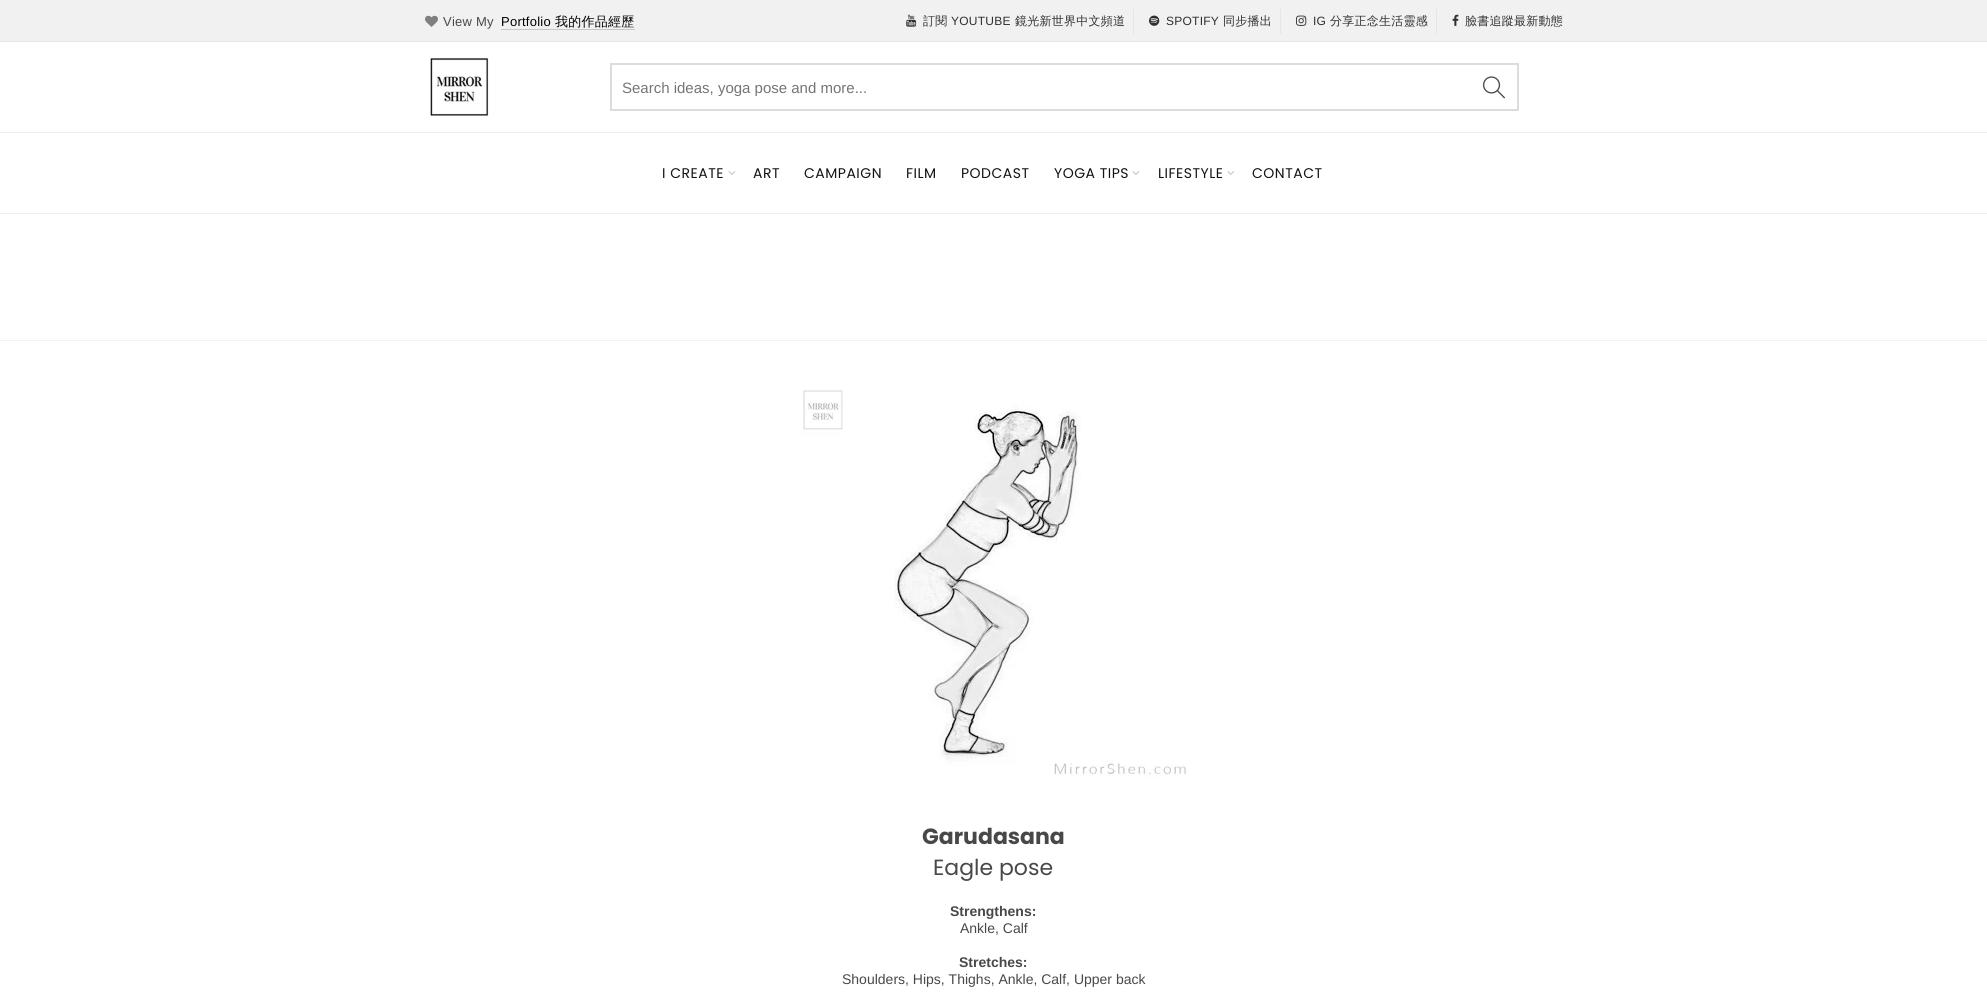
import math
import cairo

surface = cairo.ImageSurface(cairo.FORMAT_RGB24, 1987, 1003)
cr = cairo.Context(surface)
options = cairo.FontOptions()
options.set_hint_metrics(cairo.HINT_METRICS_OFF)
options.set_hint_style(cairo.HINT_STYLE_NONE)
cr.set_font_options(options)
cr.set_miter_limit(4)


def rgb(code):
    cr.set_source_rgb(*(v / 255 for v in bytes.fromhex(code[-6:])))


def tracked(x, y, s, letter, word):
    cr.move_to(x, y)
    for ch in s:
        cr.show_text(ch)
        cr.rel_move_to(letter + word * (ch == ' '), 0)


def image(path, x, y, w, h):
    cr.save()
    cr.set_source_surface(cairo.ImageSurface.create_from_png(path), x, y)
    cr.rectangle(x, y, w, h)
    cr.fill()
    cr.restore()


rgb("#ffffff")
cr.paint()
rgb("#f1f1f1")
cr.rectangle(0, 0, 1987, 41)
cr.fill()
rgb("#e5e5e5")
cr.rectangle(0, 41, 1987, 1)
cr.fill()
image("img/1.png", 425, 15, 13, 12)
rgb("#c7c7c7")
cr.rectangle(501, 29, 134, 1)
cr.fill()
image("img/2.png", 906, 14, 11, 13)
rgb("#e5e5e5")
cr.rectangle(1133, 9, 1, 25)
cr.fill()
image("img/3.png", 1149, 15, 11, 11)
cr.rectangle(1280, 9, 1, 25)
cr.fill()
image("img/4.png", 1296, 15, 11, 11)
cr.rectangle(1436, 9, 1, 25)
cr.fill()
image("img/5.png", 1452, 14, 7, 12)
image("img/6.png", 430, 58, 59, 58)
cr.rectangle(611, 64, 907, 46)
rgb("#dcdcdc")
cr.stroke()
image("img/7.png", 1483, 76, 22, 23)
rgb("#eeeeee")
cr.rectangle(0, 132, 1987, 1)
cr.fill()
cr.rectangle(0, 213, 1987, 1)
cr.fill()
image("img/8.png", 728, 171, 8, 4)
image("img/8.png", 1132, 171, 8, 4)
image("img/8.png", 1227, 171, 8, 4)
rgb("#f2f2f2")
cr.rectangle(0, 340, 1987, 1)
cr.fill()
image("img/9.png", 802, 389, 384, 388)
cr.select_font_face("Liberation Sans")
cr.set_font_size(13)
rgb("#484848")
tracked(443, 26, "View My", 0.25, 0)
rgb("#000000")
tracked(501, 26, "Portfolio", 0.25, 0)
cr.select_font_face("WenQuanYi Zen Hei Medium")
tracked(555, 26, "我的作品經歷", 0.25, 0)
cr.set_font_size(12)
rgb("#303030")
tracked(923, 25, "訂閱", 0.25, 0)
cr.select_font_face("Liberation Sans")
tracked(951, 25, "YOUTUBE", 0.25, 0)
cr.select_font_face("WenQuanYi Zen Hei Medium")
tracked(1015, 25, "鏡光新世界中文頻道", 0.25, 0)
cr.select_font_face("Liberation Sans")
tracked(1166, 25, "SPOTIFY", 0.25, 0)
cr.select_font_face("WenQuanYi Zen Hei Medium")
tracked(1223, 25, "同步播出", 0.25, 0)
cr.select_font_face("Liberation Sans")
tracked(1313, 25, "IG", 0.25, 0)
cr.select_font_face("WenQuanYi Zen Hei Medium")
tracked(1330, 25, "分享正念生活靈感", 0.25, 0)
tracked(1465, 25, "臉書追蹤最新動態", 0.25, 0)
cr.save()
cr.rectangle(622, 79, 665, 17)
cr.clip()
cr.select_font_face("Liberation Sans")
cr.set_font_size(15)
rgb("#757575")
cr.move_to(622, 93)
cr.show_text("Search ideas, yoga pose and more...")
cr.restore()
cr.select_font_face("Poppins")
cr.set_font_size(14)
rgb("#121212")
for x, y, s in [
    (662, 178, "I CREATE"),
    (753, 178, "ART"),
    (804, 178, "CAMPAIGN"),
    (906, 178, "FILM"),
    (961, 178, "PODCAST"),
    (1054, 178, "YOGA TIPS"),
    (1158, 178, "LIFESTYLE"),
    (1252, 178, "CONTACT"),
]:
    tracked(x, y, s, 0.5, 0)
cr.select_font_face("Poppins", cairo.FONT_SLANT_NORMAL, cairo.FONT_WEIGHT_BOLD)
cr.set_font_size(22)
rgb("#484848")
cr.move_to(922, 844)
cr.show_text("Garudasana")
cr.select_font_face("Poppins")
cr.move_to(933, 875)
cr.show_text("Eagle pose")
cr.select_font_face("Liberation Sans", cairo.FONT_SLANT_NORMAL, cairo.FONT_WEIGHT_BOLD)
cr.set_font_size(14)
cr.move_to(950, 916)
cr.show_text("Strengthens:")
cr.select_font_face("Liberation Sans")
cr.move_to(960, 933)
cr.show_text("Ankle, Calf")
cr.select_font_face("Liberation Sans", cairo.FONT_SLANT_NORMAL, cairo.FONT_WEIGHT_BOLD)
cr.move_to(959, 967)
cr.show_text("Stretches:")
cr.select_font_face("Liberation Sans")
cr.move_to(842, 984)
cr.show_text("Shoulders, Hips, Thighs, Ankle, Calf, Upper back")
surface.write_to_png("page.png")
